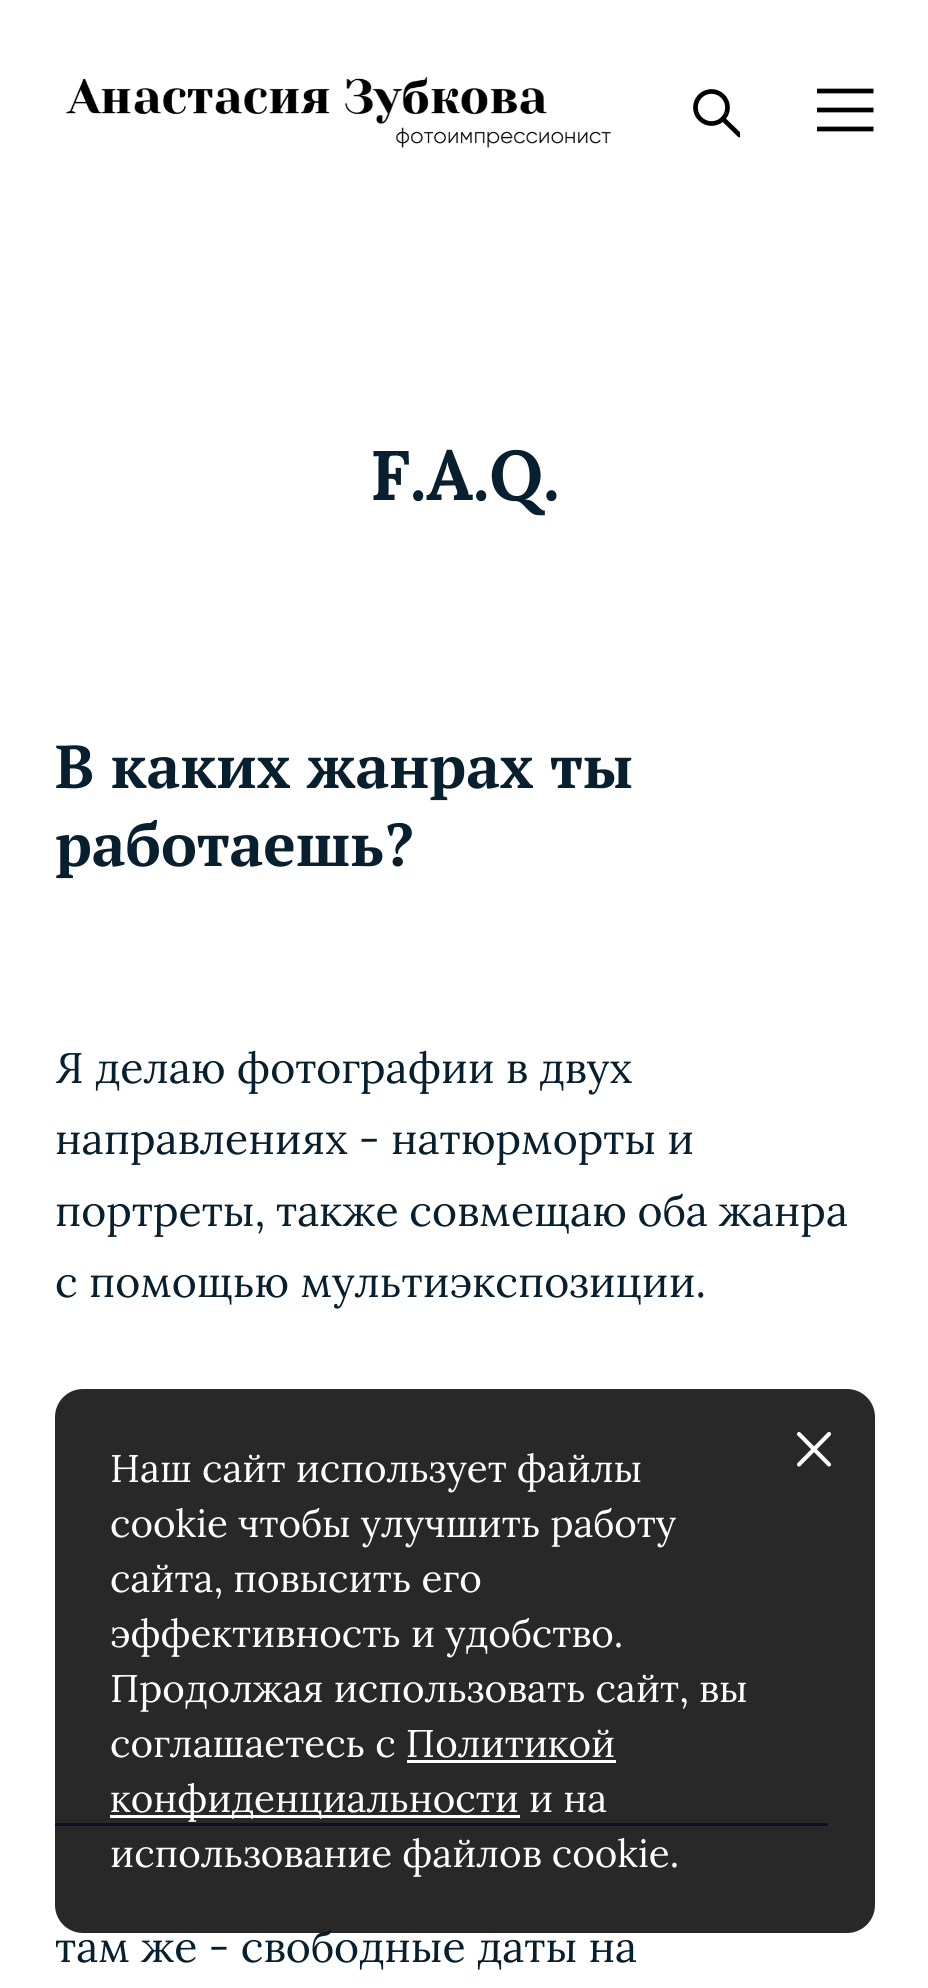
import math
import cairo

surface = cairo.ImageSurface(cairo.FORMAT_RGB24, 928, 1988)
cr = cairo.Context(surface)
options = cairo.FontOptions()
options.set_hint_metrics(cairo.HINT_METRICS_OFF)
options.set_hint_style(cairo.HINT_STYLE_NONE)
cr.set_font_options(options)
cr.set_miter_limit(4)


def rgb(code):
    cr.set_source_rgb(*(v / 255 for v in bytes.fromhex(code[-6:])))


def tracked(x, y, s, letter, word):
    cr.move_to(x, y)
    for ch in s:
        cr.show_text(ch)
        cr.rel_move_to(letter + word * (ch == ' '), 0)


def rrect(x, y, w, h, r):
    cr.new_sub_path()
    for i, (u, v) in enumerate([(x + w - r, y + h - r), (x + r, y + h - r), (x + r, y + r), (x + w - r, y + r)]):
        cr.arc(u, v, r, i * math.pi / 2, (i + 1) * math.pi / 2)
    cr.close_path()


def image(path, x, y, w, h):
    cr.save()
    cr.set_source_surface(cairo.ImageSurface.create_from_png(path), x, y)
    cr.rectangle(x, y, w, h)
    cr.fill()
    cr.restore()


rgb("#ffffff")
cr.paint()
image("img/1.png", 66, 77, 546, 71)
cr.arc(711.5, 107.5, 16, 0, 2 * math.pi)
rgb("#000000")
cr.set_line_width(4.7)
cr.stroke()
cr.save()
cr.rectangle(693, 83, 47, 55)
cr.clip()
cr.new_path()
cr.move_to(723, 119)
cr.line_to(739.5, 135)
cr.set_line_cap(cairo.LINE_CAP_ROUND)
cr.set_line_join(cairo.LINE_JOIN_ROUND)
cr.stroke()
cr.restore()
cr.new_path()
cr.move_to(817, 91)
cr.line_to(873.5, 91)
cr.move_to(817, 110)
cr.line_to(873.5, 110)
cr.move_to(817, 129)
cr.line_to(873.5, 129)
cr.stroke()
rgb("#0000ff")
cr.rectangle(55, 1823, 773, 3)
cr.fill()
cr.select_font_face("Lora", cairo.FONT_SLANT_NORMAL, cairo.FONT_WEIGHT_BOLD)
cr.set_font_size(70)
rgb("#071f2e")
cr.move_to(370, 500)
cr.show_text("F.A.Q.")
cr.select_font_face("pt serif", cairo.FONT_SLANT_NORMAL, cairo.FONT_WEIGHT_BOLD)
cr.set_font_size(60.5)
cr.move_to(55, 788)
cr.show_text("В каких жанрах ты")
cr.move_to(55, 866)
cr.show_text("работаешь?")
cr.select_font_face("Lora")
cr.set_font_size(42.75)
cr.move_to(55, 1083)
cr.show_text("Я делаю фотографии в двух")
cr.move_to(55, 1154)
cr.show_text("направлениях - натюрморты и")
tracked(55, 1226, "портреты, также совмещаю оба жанра", 0, -0.5)
cr.move_to(55, 1297)
cr.show_text("с помощью мультиэкспозиции.")
cr.move_to(55, 1962)
cr.show_text("там же - свободные даты на")
cr.set_source_rgba(0.067, 0.067, 0.067, 0.9)
rrect(55, 1389, 820, 544, 28)
cr.fill()
cr.set_font_size(38.5)
rgb("#ffffff")
for x, y, s in [
    (110, 1482, "Наш сайт использует файлы"),
    (110, 1537, "cookie чтобы улучшить работу"),
    (110, 1592, "сайта, повысить его"),
    (110, 1647, "эффективность и удобство."),
    (110, 1702, "Продолжая использовать сайт, вы"),
    (110, 1757, "соглашаетесь с Политикой"),
]:
    cr.move_to(x, y)
    cr.show_text(s)
cr.rectangle(407, 1760, 209, 3)
cr.fill()
cr.rectangle(110, 1815, 410, 3)
cr.fill()
cr.move_to(110, 1812)
cr.show_text("конфиденциальности и на")
cr.move_to(110, 1867)
cr.show_text("использование файлов cookie.")
cr.new_path()
cr.move_to(829, 1434)
cr.line_to(799, 1464.5)
cr.move_to(799, 1434)
cr.line_to(829, 1464.5)
cr.set_line_width(4.1)
cr.set_line_cap(cairo.LINE_CAP_ROUND)
cr.set_line_join(cairo.LINE_JOIN_ROUND)
cr.stroke()
surface.write_to_png("page.png")
